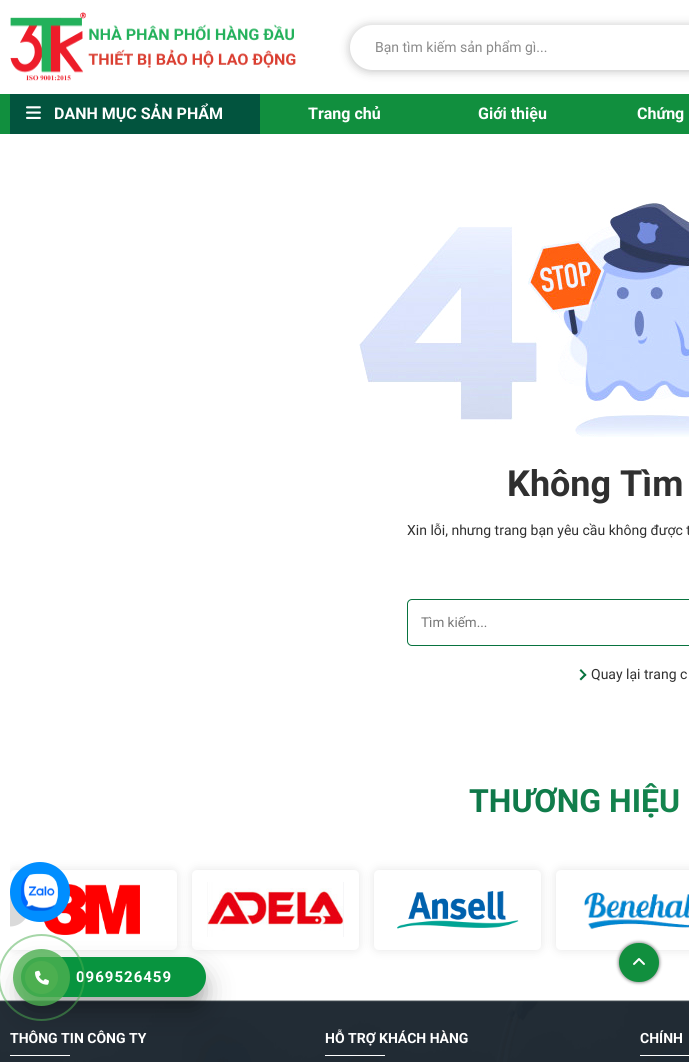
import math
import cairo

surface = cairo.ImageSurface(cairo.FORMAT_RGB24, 689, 1062)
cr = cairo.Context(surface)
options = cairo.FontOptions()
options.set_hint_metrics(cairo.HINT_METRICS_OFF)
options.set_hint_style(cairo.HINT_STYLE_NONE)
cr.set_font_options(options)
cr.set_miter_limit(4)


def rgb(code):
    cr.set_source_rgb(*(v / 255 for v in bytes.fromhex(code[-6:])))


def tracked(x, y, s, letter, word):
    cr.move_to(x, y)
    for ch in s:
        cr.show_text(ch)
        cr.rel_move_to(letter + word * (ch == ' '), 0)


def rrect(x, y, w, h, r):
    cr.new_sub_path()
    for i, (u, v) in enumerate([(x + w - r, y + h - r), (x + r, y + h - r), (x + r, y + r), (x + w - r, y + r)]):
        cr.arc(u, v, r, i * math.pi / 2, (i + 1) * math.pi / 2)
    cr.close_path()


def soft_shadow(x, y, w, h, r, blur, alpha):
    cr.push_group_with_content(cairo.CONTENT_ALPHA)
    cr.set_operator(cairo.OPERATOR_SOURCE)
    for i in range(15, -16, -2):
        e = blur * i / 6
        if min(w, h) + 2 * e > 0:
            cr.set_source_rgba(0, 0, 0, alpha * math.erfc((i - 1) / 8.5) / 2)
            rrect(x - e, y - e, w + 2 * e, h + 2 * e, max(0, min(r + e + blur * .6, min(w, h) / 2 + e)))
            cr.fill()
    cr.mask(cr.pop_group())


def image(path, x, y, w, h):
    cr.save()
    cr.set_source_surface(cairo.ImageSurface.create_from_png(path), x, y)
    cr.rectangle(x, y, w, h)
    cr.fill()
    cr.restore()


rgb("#ffffff")
cr.paint()
image("img/1.png", 10, 12, 286, 69)
rgb("#000000")
soft_shadow(350, 26, 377, 45, 22.5, 5, 0.25)
rgb("#ffffff")
cr.new_path()
cr.move_to(372.5, 25)
cr.line_to(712, 25)
cr.line_to(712, 70)
cr.line_to(372.5, 70)
cr.curve_to(360, 70, 350, 60, 350, 47.5)
cr.curve_to(350, 35, 360, 25, 372.5, 25)
cr.close_path()
cr.fill()
rgb("#118f3e")
cr.rectangle(0, 94, 689, 40)
cr.fill()
rgb("#02543e")
cr.rectangle(10, 94, 250, 40)
cr.fill()
image("img/2.png", 26, 106, 15, 13)
image("img/3.png", 359, 203, 330, 234)
rrect(407.5, 599.5, 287, 46, 4.5)
rgb("#08733f")
cr.set_line_width(1)
cr.stroke()
cr.new_path()
cr.move_to(581, 669)
cr.line_to(586.5, 675)
cr.line_to(585, 676)
cr.line_to(579.5, 670.5)
cr.close_path()
cr.fill()
cr.new_path()
cr.move_to(585, 673.5)
cr.line_to(586.5, 675)
cr.line_to(581, 680.5)
cr.line_to(579.5, 679)
cr.close_path()
cr.fill()
cr.save()
cr.rectangle(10, 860, 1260, 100)
cr.clip()
rgb("#979797")
soft_shadow(10, 870, 167, 80, 5, 5, 0.25)
cr.restore()
rgb("#ffffff")
rrect(10, 870, 167, 80, 5)
cr.fill()
image("img/4.png", 43, 884, 97, 51)
rgb("#979797")
soft_shadow(192, 870, 167, 80, 5, 5, 0.25)
rgb("#ffffff")
rrect(192, 870, 167, 80, 5)
cr.fill()
image("img/5.png", 207, 882, 137, 55)
rgb("#979797")
soft_shadow(374, 870, 167, 80, 5, 5, 0.25)
rgb("#ffffff")
rrect(374, 870, 167, 80, 5)
cr.fill()
image("img/6.png", 397, 891, 122, 38)
rgb("#979797")
soft_shadow(556, 870, 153, 80, 5, 5, 0.25)
rgb("#ffffff")
rrect(556, 870, 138, 80, 5)
cr.fill()
image("img/7.png", 584, 892, 105, 38)
rgb("#dadada")
cr.new_path()
cr.move_to(10, 888.5)
cr.curve_to(20.5, 888.5, 29, 897, 29, 907.5)
cr.curve_to(29, 918, 20.5, 926.5, 10, 926.5)
cr.close_path()
cr.fill()
image("img/8.png", 0, 1000, 689, 62)
for x, y, w, h, color in [
    (10, 1055, 60, 1, "#ffffff"),
    (325, 1055, 60, 1, "#ffffff"),
    (640, 1055, 49, 1, "#ffffff"),
]:
    rgb(color)
    cr.rectangle(x, y, w, h)
    cr.fill()
rgb("#008eff")
cr.arc(40, 892, 30, 0, 2 * math.pi)
cr.fill()
image("img/9.png", 21, 873, 37, 38)
rgb("#000000")
soft_shadow(21, 967, 185, 40, 20, 5, 0.1)
soft_shadow(21, 971, 185, 40, 20, 14, 0.25)
rgb("#08943f")
rrect(21, 957, 185, 40, 20)
cr.fill()
rgb("#9a9a9a")
soft_shadow(618, 942, 42, 41, 20.5, 1.5, 1)
rgb("#118f3e")
rrect(619, 943, 40, 39, 19.5)
cr.fill()
image("img/11.png", 633, 958, 12, 7)
cr.select_font_face("Roboto")
cr.set_font_size(14)
rgb("#8a8a8a")
cr.move_to(375, 52)
cr.show_text("Bạn tìm kiếm sản phẩm gì...")
cr.select_font_face("Roboto", cairo.FONT_SLANT_NORMAL, cairo.FONT_WEIGHT_BOLD)
cr.set_font_size(16)
rgb("#ffffff")
for x, y, s in [
    (54, 119, "DANH MỤC SẢN PHẨM"),
    (308, 119, "Trang chủ"),
    (478, 119, "Giới thiệu"),
    (637, 119, "Chứng"),
]:
    cr.move_to(x, y)
    cr.show_text(s)
cr.set_font_size(36)
rgb("#303030")
cr.move_to(507, 496)
cr.show_text("Không Tìm")
cr.select_font_face("Roboto")
cr.set_font_size(14)
cr.move_to(407, 535)
cr.show_text("Xin lỗi, nhưng trang bạn yêu cầu không được t")
cr.set_font_size(13.5)
rgb("#757575")
cr.move_to(421, 627)
cr.show_text("Tìm kiếm...")
cr.set_font_size(14)
rgb("#303030")
cr.move_to(591, 679)
cr.show_text("Quay lại trang c")
cr.select_font_face("Roboto", cairo.FONT_SLANT_NORMAL, cairo.FONT_WEIGHT_BOLD)
cr.set_font_size(32)
gradient = cairo.LinearGradient(-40, 801, 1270, 801)
gradient.add_color_stop_rgba(0, 0.008, 0.329, 0.243, 1)
gradient.add_color_stop_rgba(0.98, 0.129, 0.675, 0.353, 1)
cr.set_source(gradient)
cr.move_to(469, 812)
cr.show_text("THƯƠNG HIỆU")
cr.set_font_size(14)
rgb("#ffffff")
for x, y, s in [
    (10, 1043, "THÔNG TIN CÔNG TY"),
    (325, 1043, "HỖ TRỢ KHÁCH HÀNG"),
    (640, 1043, "CHÍNH"),
]:
    cr.move_to(x, y)
    cr.show_text(s)
cr.set_font_size(15)
tracked(76, 982, "0969526459", 1, 0)
cr.new_path()
cr.arc(41.5, 977.5, 42.5, 0, 2 * math.pi)
cr.set_source_rgba(0.298, 0.686, 0.314, 0.5)
cr.set_line_width(2)
cr.stroke()
cr.set_source_rgba(0.298, 0.686, 0.314, 0.8)
cr.arc(41.5, 977.5, 28.5, 0, 2 * math.pi)
cr.fill()
rgb("#4caf50")
cr.arc(41.5, 977.5, 16.5, 0, 2 * math.pi)
cr.fill()
image("img/10.png", 35, 970, 14, 15)
surface.write_to_png("page.png")
